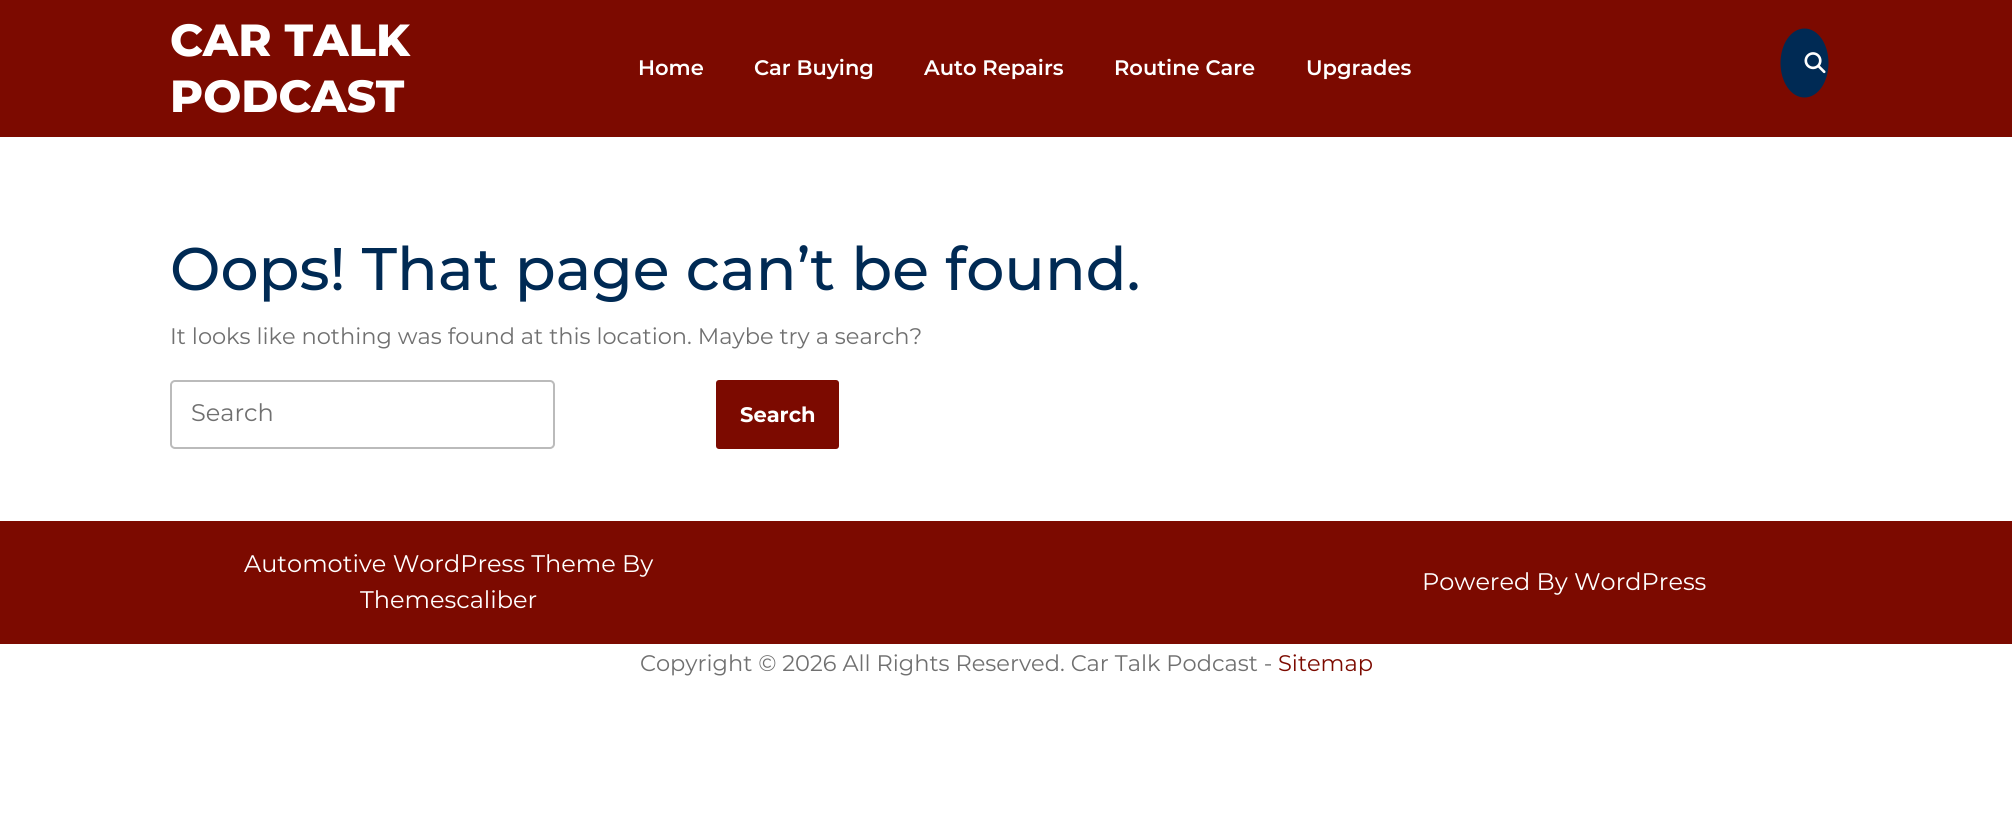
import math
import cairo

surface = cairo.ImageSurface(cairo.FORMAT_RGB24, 2012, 818)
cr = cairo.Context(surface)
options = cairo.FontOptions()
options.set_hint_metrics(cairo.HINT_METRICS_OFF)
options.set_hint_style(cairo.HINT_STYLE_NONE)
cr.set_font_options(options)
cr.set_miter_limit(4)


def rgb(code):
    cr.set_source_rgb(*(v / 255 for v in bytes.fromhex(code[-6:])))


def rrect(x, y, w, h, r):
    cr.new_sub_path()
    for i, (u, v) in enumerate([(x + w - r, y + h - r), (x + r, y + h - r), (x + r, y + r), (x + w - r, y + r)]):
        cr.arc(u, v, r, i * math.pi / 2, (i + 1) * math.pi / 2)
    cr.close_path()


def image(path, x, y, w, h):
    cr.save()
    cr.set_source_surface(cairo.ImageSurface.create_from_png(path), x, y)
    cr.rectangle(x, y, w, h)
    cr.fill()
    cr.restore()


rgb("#ffffff")
cr.paint()
rgb("#7c0a00")
cr.rectangle(0, 0, 2012, 137)
cr.fill()
rgb("#002a54")
cr.new_path()
cr.move_to(1804.5, 28.5)
cr.curve_to(1818, 28.5, 1828.5, 44, 1828.5, 63)
cr.curve_to(1828.5, 82, 1818, 97.5, 1804.5, 97.5)
cr.curve_to(1791, 97.5, 1780.5, 82, 1780.5, 63)
cr.curve_to(1780.5, 44, 1791, 28.5, 1804.5, 28.5)
cr.close_path()
cr.fill()
image("img/1.png", 1804, 52, 22, 22)
rrect(171, 381, 383, 67, 4)
rgb("#bbbbbb")
cr.stroke()
rgb("#7c0a00")
rrect(716, 380, 123, 69, 3)
cr.fill()
cr.rectangle(0, 521, 2012, 123)
cr.fill()
cr.select_font_face("Montserrat ExtraBold")
cr.set_font_size(45)
rgb("#ffffff")
cr.move_to(170, 56)
cr.show_text("CAR TALK")
cr.move_to(170, 112)
cr.show_text("PODCAST")
cr.select_font_face("Montserrat SemiBold")
cr.set_font_size(21)
for x, y, s in [
    (638, 75, "Home"),
    (754, 75, "Car Buying"),
    (924, 75, "Auto Repairs"),
    (1114, 75, "Routine Care"),
    (1306, 75, "Upgrades"),
]:
    cr.move_to(x, y)
    cr.show_text(s)
cr.select_font_face("Montserrat Medium")
cr.set_font_size(60)
rgb("#002a54")
cr.move_to(170, 290)
cr.show_text("Oops! That page can’t be found.")
cr.select_font_face("Montserrat")
cr.set_font_size(22.5)
rgb("#707070")
cr.move_to(170, 344)
cr.show_text("It looks like nothing was found at this location. Maybe try a search?")
cr.set_font_size(24)
cr.move_to(191, 421)
cr.show_text("Search")
cr.select_font_face("Montserrat", cairo.FONT_SLANT_NORMAL, cairo.FONT_WEIGHT_BOLD)
cr.set_font_size(21)
rgb("#ffffff")
cr.move_to(740, 422)
cr.show_text("Search")
cr.select_font_face("Montserrat")
cr.set_font_size(24)
for x, y, s in [
    (244, 572, "Automotive WordPress Theme By"),
    (360, 608, "Themescaliber"),
    (1422, 590, "Powered By WordPress"),
]:
    cr.move_to(x, y)
    cr.show_text(s)
cr.set_font_size(22.5)
rgb("#707070")
cr.move_to(640, 671)
cr.show_text("Copyright © 2026 All Rights Reserved. Car Talk Podcast -")
rgb("#7c0a00")
cr.move_to(1278, 671)
cr.show_text("Sitemap")
surface.write_to_png("page.png")
